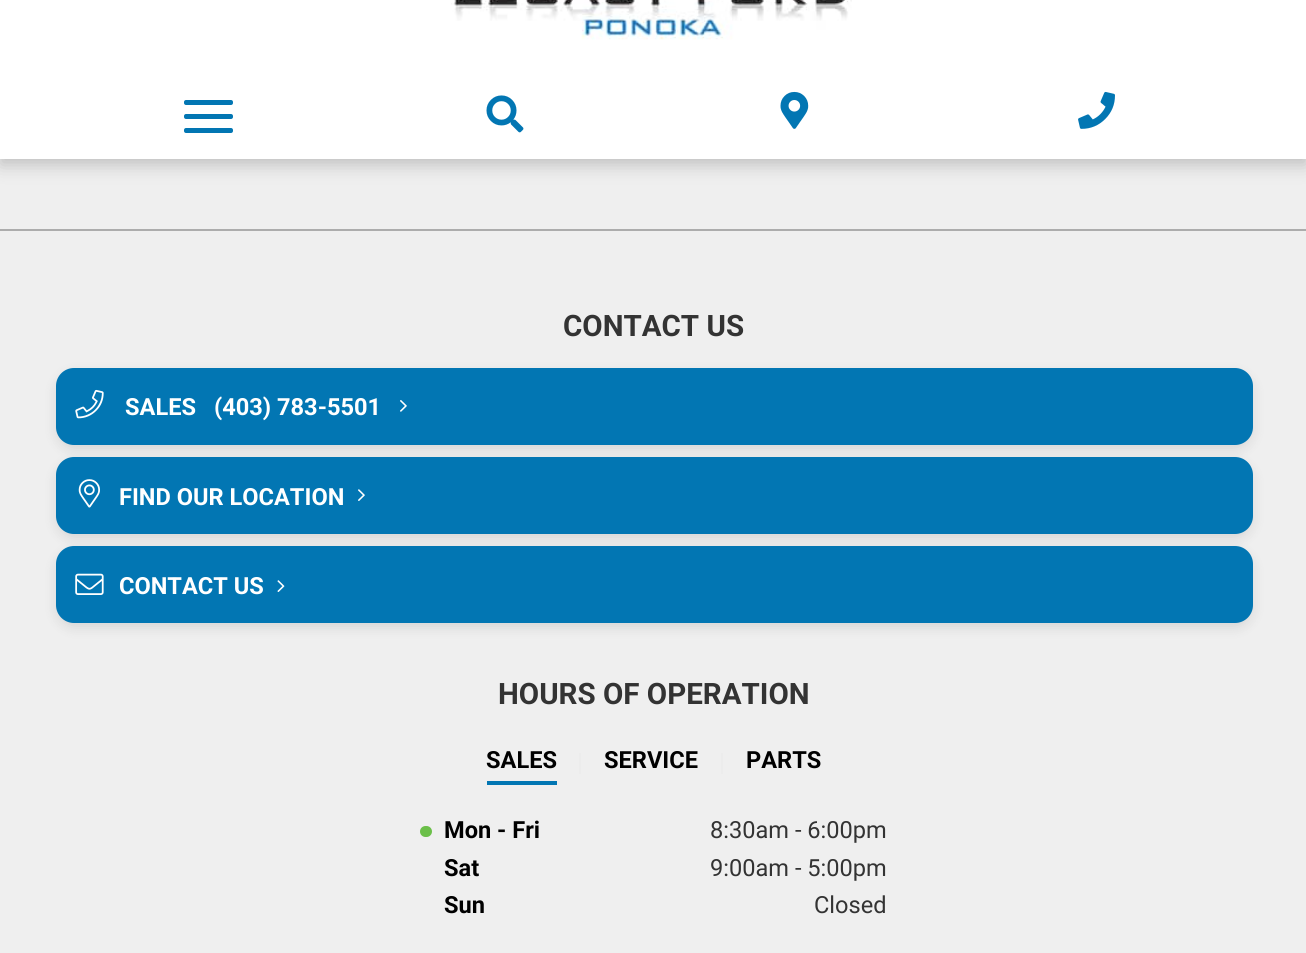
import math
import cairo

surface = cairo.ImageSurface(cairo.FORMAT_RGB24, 1306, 953)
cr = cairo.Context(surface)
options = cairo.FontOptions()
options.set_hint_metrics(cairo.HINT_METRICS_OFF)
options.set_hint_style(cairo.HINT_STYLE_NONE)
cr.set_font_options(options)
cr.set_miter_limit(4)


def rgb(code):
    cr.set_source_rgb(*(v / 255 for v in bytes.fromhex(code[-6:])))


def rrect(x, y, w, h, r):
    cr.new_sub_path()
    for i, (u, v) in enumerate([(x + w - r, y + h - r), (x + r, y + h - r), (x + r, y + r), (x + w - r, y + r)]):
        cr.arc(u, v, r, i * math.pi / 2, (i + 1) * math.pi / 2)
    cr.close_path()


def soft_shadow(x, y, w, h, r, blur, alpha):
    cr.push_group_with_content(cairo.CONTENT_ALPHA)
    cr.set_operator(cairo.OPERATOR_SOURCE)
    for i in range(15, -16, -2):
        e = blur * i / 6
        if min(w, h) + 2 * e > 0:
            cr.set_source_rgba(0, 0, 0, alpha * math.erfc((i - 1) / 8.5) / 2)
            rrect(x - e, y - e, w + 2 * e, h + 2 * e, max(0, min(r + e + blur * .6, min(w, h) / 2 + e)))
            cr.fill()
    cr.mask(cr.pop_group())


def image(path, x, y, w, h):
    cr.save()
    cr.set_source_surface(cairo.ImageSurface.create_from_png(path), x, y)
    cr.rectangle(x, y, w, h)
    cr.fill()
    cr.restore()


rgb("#efefef")
cr.paint()
rgb("#000000")
soft_shadow(0, -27, 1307, 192, 0, 9, 0.2)
rgb("#ffffff")
cr.rectangle(0, 0, 1306, 159)
cr.fill()
image("img/1.png", 451, 0, 401, 40)
rgb("#0276b3")
rrect(184, 114, 49, 5, 2)
cr.fill()
rrect(184, 100, 49, 5, 2)
cr.fill()
rrect(184, 128, 49, 5, 2)
cr.fill()
image("img/2.png", 486, 95, 38, 38)
image("img/3.png", 780, 91, 29, 38)
image("img/4.png", 1078, 91, 37, 38)
rgb("#acacac")
cr.rectangle(0, 229, 1306, 2)
cr.fill()
rgb("#000000")
soft_shadow(56, 373, 1197, 77, 18, 6, 0.1)
rgb("#0276b3")
rrect(56, 368, 1197, 77, 18)
cr.fill()
image("img/5.png", 75, 389, 29, 30)
image("img/6.png", 400, 400, 7, 12)
rgb("#000000")
soft_shadow(56, 462, 1197, 77, 18, 6, 0.1)
rgb("#0276b3")
rrect(56, 457, 1197, 77, 18)
cr.fill()
image("img/7.png", 78, 479, 22, 29)
image("img/8.png", 358, 489, 7, 12)
rgb("#000000")
soft_shadow(56, 551, 1197, 77, 18, 6, 0.1)
rgb("#0276b3")
rrect(56, 546, 1197, 77, 18)
cr.fill()
image("img/9.png", 75, 573, 29, 22)
image("img/10.png", 277, 580, 8, 12)
for x, y, w, h, color in [
    (487, 781, 70, 4, "#0276b3"),
    (579, 753, 2, 21, "#ececec"),
    (721, 753, 2, 21, "#ececec"),
]:
    rgb(color)
    cr.rectangle(x, y, w, h)
    cr.fill()
rgb("#6bbf49")
rrect(420, 826, 12, 11, 5.5)
cr.fill()
cr.select_font_face("Roboto", cairo.FONT_SLANT_NORMAL, cairo.FONT_WEIGHT_BOLD)
cr.set_font_size(29.5)
rgb("#333333")
cr.move_to(563, 336)
cr.show_text("CONTACT US")
cr.set_font_size(23.6)
rgb("#ffffff")
for x, y, s in [
    (125, 415, "SALES"),
    (214, 415, "(403) 783-5501"),
    (119, 505, "FIND OUR LOCATION"),
    (119, 594, "CONTACT US"),
]:
    cr.move_to(x, y)
    cr.show_text(s)
cr.set_font_size(29.5)
rgb("#333333")
cr.move_to(498, 704)
cr.show_text("HOURS OF OPERATION")
cr.set_font_size(23.6)
rgb("#000000")
for x, y, s in [
    (486, 768, "SALES"),
    (604, 768, "SERVICE"),
    (746, 768, "PARTS"),
    (444, 838, "Mon - Fri"),
]:
    cr.move_to(x, y)
    cr.show_text(s)
cr.select_font_face("Roboto")
rgb("#333333")
cr.move_to(710, 838)
cr.show_text("8:30am - 6:00pm")
cr.select_font_face("Roboto", cairo.FONT_SLANT_NORMAL, cairo.FONT_WEIGHT_BOLD)
rgb("#000000")
cr.move_to(444, 876)
cr.show_text("Sat")
cr.select_font_face("Roboto")
rgb("#333333")
cr.move_to(710, 876)
cr.show_text("9:00am - 5:00pm")
cr.select_font_face("Roboto", cairo.FONT_SLANT_NORMAL, cairo.FONT_WEIGHT_BOLD)
rgb("#000000")
cr.move_to(444, 913)
cr.show_text("Sun")
cr.select_font_face("Roboto")
rgb("#333333")
cr.move_to(814, 913)
cr.show_text("Closed")
surface.write_to_png("page.png")
